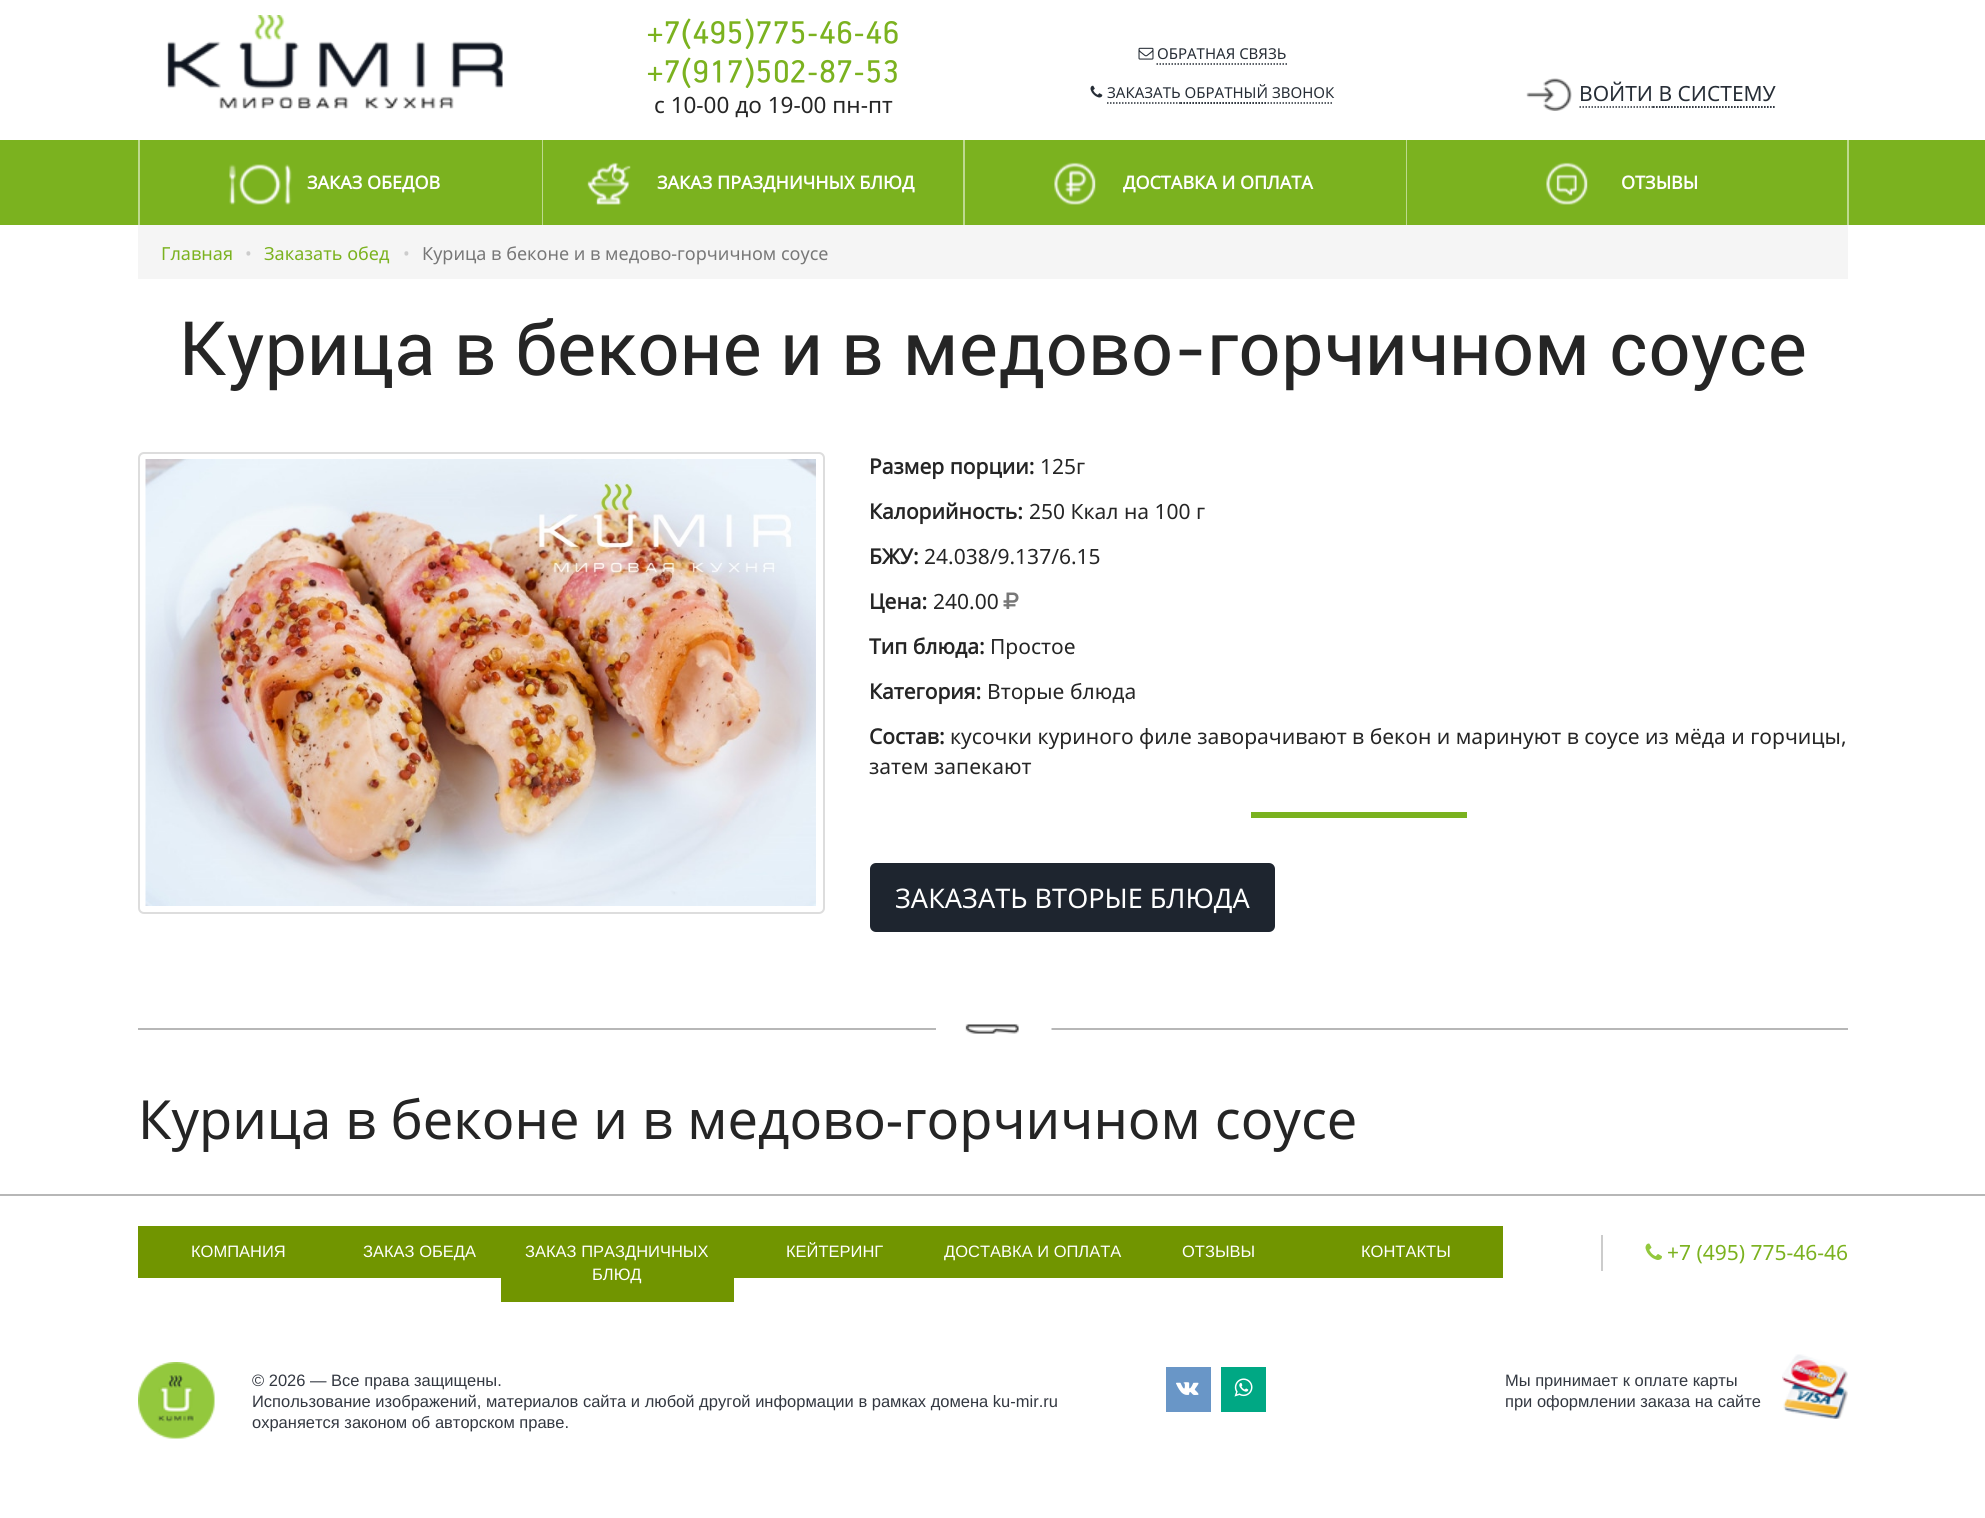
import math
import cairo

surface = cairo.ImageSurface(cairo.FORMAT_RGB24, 1985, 1518)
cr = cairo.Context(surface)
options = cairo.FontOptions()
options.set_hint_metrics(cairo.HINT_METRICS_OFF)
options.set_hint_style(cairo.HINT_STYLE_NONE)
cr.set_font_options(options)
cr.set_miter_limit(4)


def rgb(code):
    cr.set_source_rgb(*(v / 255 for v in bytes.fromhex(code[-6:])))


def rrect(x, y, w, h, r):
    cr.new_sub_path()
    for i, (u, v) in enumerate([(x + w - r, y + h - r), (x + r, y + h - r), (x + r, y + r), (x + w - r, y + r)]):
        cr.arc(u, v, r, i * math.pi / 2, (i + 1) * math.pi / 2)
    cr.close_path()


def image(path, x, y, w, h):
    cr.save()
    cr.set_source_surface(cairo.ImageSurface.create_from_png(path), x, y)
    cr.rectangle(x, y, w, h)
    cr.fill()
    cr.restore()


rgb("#ffffff")
cr.paint()
image("img/1.png", 167, 15, 336, 94)
image("img/2.png", 1138, 47, 16, 13)
cr.new_path()
cr.move_to(1156.5, 64)
cr.line_to(1287, 64)
rgb("#262d36")
cr.set_line_width(1.5)
cr.set_dash([1.5, 1.5])
cr.stroke()
image("img/3.png", 1090, 85, 13, 13)
cr.new_path()
cr.move_to(1107, 103)
cr.line_to(1180.5, 103)
cr.stroke()
cr.new_path()
cr.move_to(1180.5, 103)
cr.line_to(1267.5, 103)
cr.stroke()
cr.new_path()
cr.move_to(1267.5, 103)
cr.line_to(1333.5, 103)
cr.stroke()
cr.new_path()
cr.move_to(1180.5, 103)
cr.line_to(1267.5, 103)
cr.stroke()
image("img/4.png", 1526, 78, 46, 33)
cr.new_path()
cr.move_to(1579.5, 107)
cr.line_to(1653, 107)
cr.stroke()
cr.new_path()
cr.move_to(1653, 107)
cr.line_to(1776, 107)
cr.stroke()
cr.new_path()
cr.move_to(1653, 107)
cr.line_to(1776, 107)
cr.stroke()
image("img/5.png", 647, 18, 251, 32)
image("img/6.png", 647, 57, 250, 32)
for x, y, w, h, color in [
    (0, 140, 1985, 85, "#7bb21f"),
    (542, 140, 1, 85, "#bdd98f"),
    (138, 140, 2, 85, "#bdd98f"),
]:
    rgb(color)
    cr.rectangle(x, y, w, h)
    cr.fill()
image("img/7.png", 229, 164, 63, 41)
cr.rectangle(963, 140, 2, 85)
cr.fill()
image("img/8.png", 587, 162, 44, 43)
cr.rectangle(1406, 140, 1, 85)
cr.fill()
image("img/9.png", 1054, 162, 42, 43)
cr.rectangle(1847, 140, 2, 85)
cr.fill()
image("img/10.png", 1546, 162, 42, 43)
rgb("#f5f5f5")
cr.rectangle(138, 225, 1710, 54)
cr.fill()
rrect(139, 453, 685, 460, 5)
rgb("#dddddd")
cr.set_line_width(2)
cr.set_dash([])
cr.stroke()
image("img/11.png", 145, 459, 671, 447)
image("img/12.png", 1003, 592, 16, 17)
rgb("#7ab21f")
cr.rectangle(1251, 812, 216, 6)
cr.fill()
rgb("#1e252f")
rrect(871, 864, 403, 67, 5)
cr.fill_preserve()
cr.stroke()
rgb("#b7b7b7")
cr.rectangle(138, 1028, 1710, 2)
cr.fill()
image("img/13.png", 936, 1024, 116, 10)
for x, y, w, h, color in [
    (0, 1194, 1985, 2, "#b7b7b7"),
    (138, 1226, 363, 52, "#719500"),
    (501, 1226, 233, 76, "#719500"),
    (734, 1226, 769, 52, "#719500"),
    (1601, 1235, 2, 36, "#cccccc"),
]:
    rgb(color)
    cr.rectangle(x, y, w, h)
    cr.fill()
image("img/14.png", 1645, 1243, 17, 17)
image("img/15.png", 138, 1362, 77, 77)
rgb("#6996c7")
cr.rectangle(1166, 1367, 45, 45)
cr.fill()
image("img/16.png", 1176, 1382, 23, 13)
rgb("#00a884")
cr.rectangle(1221, 1367, 45, 45)
cr.fill()
image("img/17.png", 1234, 1378, 19, 19)
image("img/18.png", 1782, 1354, 66, 65)
cr.select_font_face("Noto Sans")
cr.set_font_size(15)
rgb("#262d36")
cr.move_to(1157, 59)
cr.show_text("ОБРАТНАЯ СВЯЗЬ")
cr.move_to(1107, 98)
cr.show_text("ЗАКАЗАТЬ ОБРАТНЫЙ ЗВОНОК")
cr.set_font_size(21)
cr.move_to(1579, 101)
cr.show_text("ВОЙТИ В СИСТЕМУ")
cr.set_font_size(22.5)
rgb("#252525")
cr.move_to(654, 113)
cr.show_text("c 10-00 до 19-00 пн-пт")
cr.select_font_face("Noto Sans", cairo.FONT_SLANT_NORMAL, cairo.FONT_WEIGHT_BOLD)
cr.set_font_size(18)
rgb("#ffffff")
for x, y, s in [
    (307, 189, "ЗАКАЗ ОБЕДОВ"),
    (657, 189, "ЗАКАЗ ПРАЗДНИЧНЫХ БЛЮД"),
    (1123, 189, "ДОСТАВКА И ОПЛАТА"),
    (1621, 189, "ОТЗЫВЫ"),
]:
    cr.move_to(x, y)
    cr.show_text(s)
cr.select_font_face("Noto Sans")
rgb("#7bb21f")
cr.move_to(161, 260)
cr.show_text("Главная")
rgb("#cccccc")
cr.move_to(245, 260)
cr.show_text("•")
rgb("#7bb21f")
cr.move_to(264, 260)
cr.show_text("Заказать обед")
rgb("#cccccc")
cr.move_to(403, 260)
cr.show_text("•")
rgb("#777777")
cr.move_to(422, 260)
cr.show_text("Курица в беконе и в медово-горчичном соусе")
cr.select_font_face("Roboto")
cr.set_font_size(75)
rgb("#252525")
cr.move_to(179, 375)
cr.show_text("Курица в беконе и в медово-горчичном соусе")
cr.select_font_face("Noto Sans", cairo.FONT_SLANT_NORMAL, cairo.FONT_WEIGHT_BOLD)
cr.set_font_size(21)
cr.move_to(869, 474)
cr.show_text("Размер порции:")
cr.select_font_face("Noto Sans")
cr.move_to(1040, 474)
cr.show_text("125г")
cr.select_font_face("Noto Sans", cairo.FONT_SLANT_NORMAL, cairo.FONT_WEIGHT_BOLD)
cr.move_to(869, 519)
cr.show_text("Калорийность:")
cr.select_font_face("Noto Sans")
cr.move_to(1029, 519)
cr.show_text("250 Ккал на 100 г")
cr.select_font_face("Noto Sans", cairo.FONT_SLANT_NORMAL, cairo.FONT_WEIGHT_BOLD)
cr.move_to(869, 564)
cr.show_text("БЖУ:")
cr.select_font_face("Noto Sans")
cr.move_to(924, 564)
cr.show_text("24.038/9.137/6.15")
cr.select_font_face("Noto Sans", cairo.FONT_SLANT_NORMAL, cairo.FONT_WEIGHT_BOLD)
cr.move_to(869, 609)
cr.show_text("Цена:")
cr.select_font_face("Noto Sans")
cr.move_to(933, 609)
cr.show_text("240.00")
cr.select_font_face("Noto Sans", cairo.FONT_SLANT_NORMAL, cairo.FONT_WEIGHT_BOLD)
cr.move_to(869, 654)
cr.show_text("Тип блюда:")
cr.select_font_face("Noto Sans")
cr.move_to(990, 654)
cr.show_text("Простое")
cr.select_font_face("Noto Sans", cairo.FONT_SLANT_NORMAL, cairo.FONT_WEIGHT_BOLD)
cr.move_to(869, 699)
cr.show_text("Категория:")
cr.select_font_face("Noto Sans")
cr.move_to(987, 699)
cr.show_text("Вторые блюда")
cr.select_font_face("Noto Sans", cairo.FONT_SLANT_NORMAL, cairo.FONT_WEIGHT_BOLD)
cr.move_to(869, 744)
cr.show_text("Состав:")
cr.select_font_face("Noto Sans")
cr.move_to(950, 744)
cr.show_text("кусочки куриного филе заворачивают в бекон и маринуют в соусе из мёда и горчицы,")
cr.move_to(869, 774)
cr.show_text("затем запекают")
cr.set_font_size(27)
rgb("#ffffff")
cr.move_to(895, 908)
cr.show_text("ЗАКАЗАТЬ ВТОРЫЕ БЛЮДА")
cr.set_font_size(54)
rgb("#252525")
cr.move_to(138, 1139)
cr.show_text("Курица в беконе и в медово-горчичном соусе")
cr.select_font_face("Liberation Sans")
cr.set_font_size(16.5)
rgb("#ffffff")
for x, y, s in [
    (191, 1257, "КОМПАНИЯ"),
    (363, 1257, "ЗАКАЗ ОБЕДА"),
    (525, 1257, "ЗАКАЗ ПРАЗДНИЧНЫХ"),
    (592, 1280, "БЛЮД"),
    (786, 1257, "КЕЙТЕРИНГ"),
    (944, 1257, "ДОСТАВКА И ОПЛАТА"),
    (1182, 1257, "ОТЗЫВЫ"),
    (1361, 1257, "КОНТАКТЫ"),
]:
    cr.move_to(x, y)
    cr.show_text(s)
cr.select_font_face("Noto Sans")
cr.set_font_size(21)
rgb("#7bb21f")
cr.move_to(1667, 1260)
cr.show_text("+7 (495) 775-46-46")
cr.select_font_face("Liberation Sans")
cr.set_font_size(16.5)
rgb("#333841")
for x, y, s in [
    (252, 1386, "© 2026 — Все права защищены."),
    (252, 1407, "Использование изображений, материалов сайта и любой другой информации в рамках домена ku-mir.ru"),
    (252, 1428, "охраняется законом об авторском праве."),
    (1505, 1386, "Мы принимает к оплате карты"),
    (1505, 1407, "при оформлении заказа на сайте"),
]:
    cr.move_to(x, y)
    cr.show_text(s)
surface.write_to_png("page.png")
